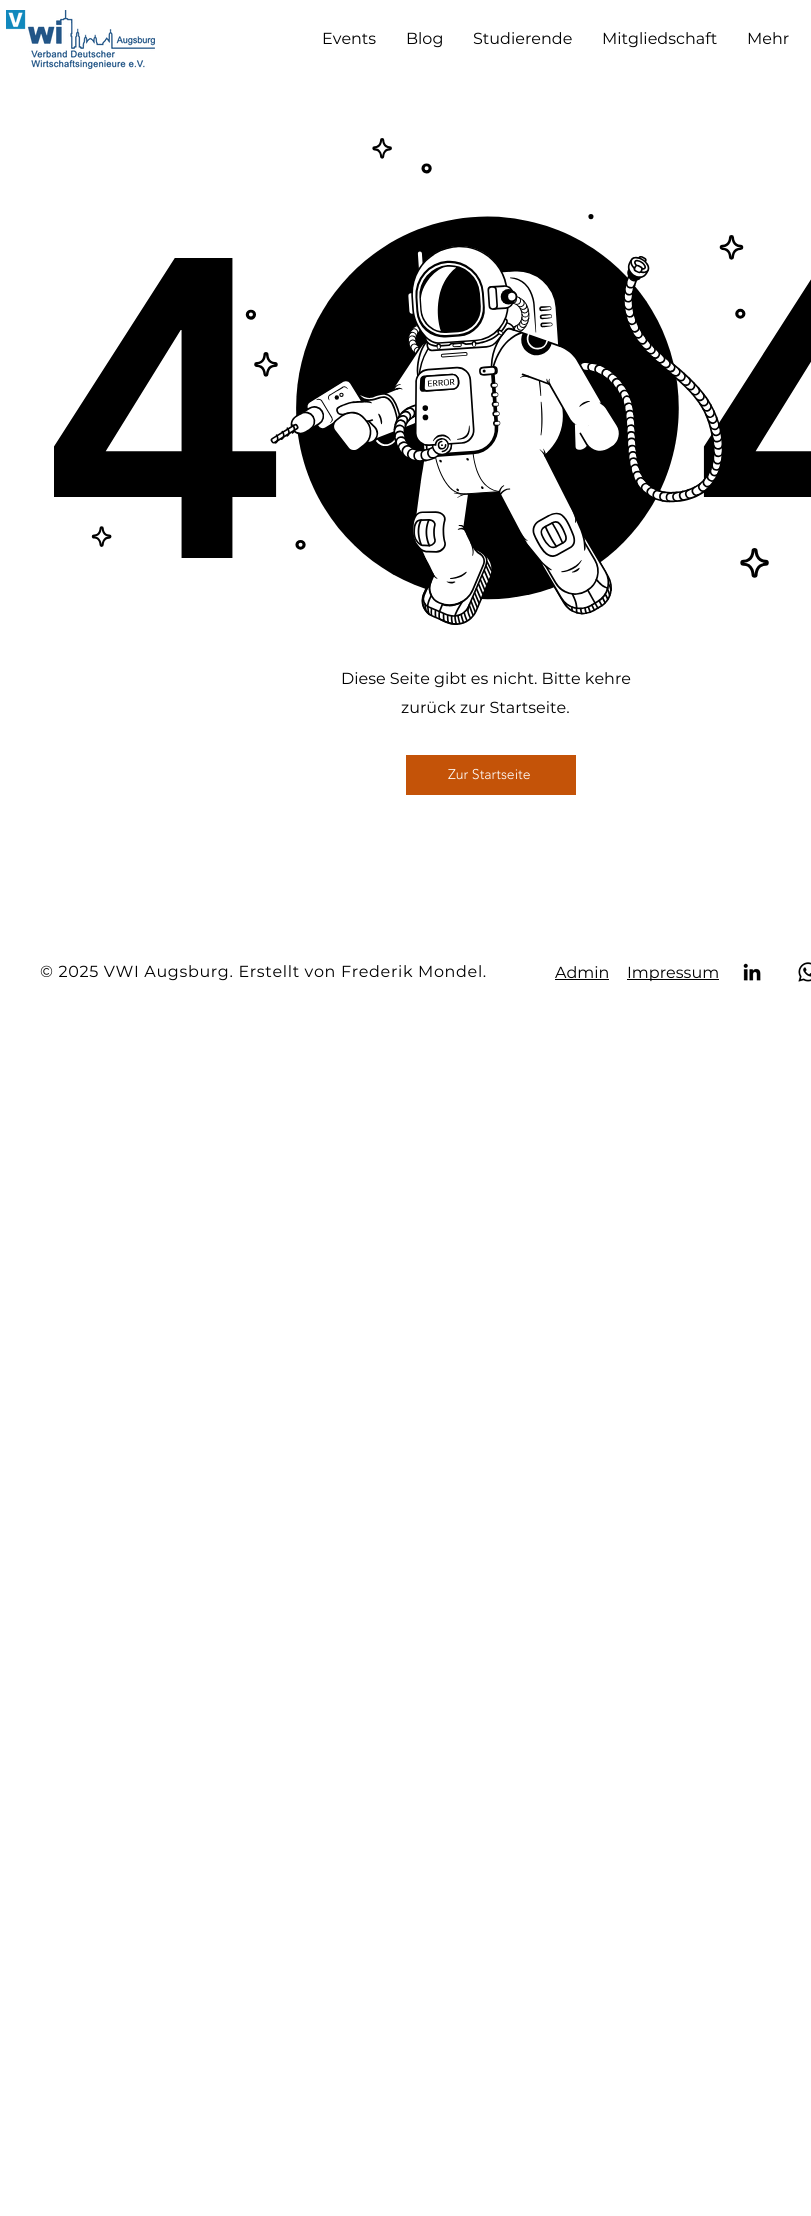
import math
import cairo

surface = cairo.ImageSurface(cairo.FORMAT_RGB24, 811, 2216)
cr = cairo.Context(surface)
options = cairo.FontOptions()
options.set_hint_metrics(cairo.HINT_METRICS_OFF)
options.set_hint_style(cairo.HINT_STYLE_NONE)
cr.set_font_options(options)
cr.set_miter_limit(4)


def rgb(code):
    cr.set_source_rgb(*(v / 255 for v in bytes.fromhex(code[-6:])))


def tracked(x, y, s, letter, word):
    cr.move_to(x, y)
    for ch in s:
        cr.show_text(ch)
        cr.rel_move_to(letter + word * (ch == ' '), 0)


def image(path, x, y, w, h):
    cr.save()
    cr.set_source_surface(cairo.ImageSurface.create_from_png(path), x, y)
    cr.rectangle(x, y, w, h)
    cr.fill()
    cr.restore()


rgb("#ffffff")
cr.paint()
image("img/1.png", 6, 10, 149, 59)
image("img/2.png", 54, 138, 757, 487)
for x, y, w, h, color in [
    (406, 755, 170, 40, "#c45308"),
    (555, 979, 54, 1, "#000000"),
    (627, 979, 92, 1, "#000000"),
]:
    rgb(color)
    cr.rectangle(x, y, w, h)
    cr.fill()
image("img/3.png", 743, 963, 18, 18)
image("img/4.png", 798, 962, 13, 20)
cr.select_font_face("Montserrat")
cr.set_font_size(16)
for x, y, s in [
    (322, 44, "Events"),
    (406, 44, "Blog"),
    (473, 44, "Studierende"),
    (602, 44, "Mitgliedschaft"),
    (747, 44, "Mehr"),
    (341, 684, "Diese Seite gibt es nicht. Bitte kehre"),
    (401, 713, "zurück zur Startseite."),
]:
    cr.move_to(x, y)
    cr.show_text(s)
cr.select_font_face("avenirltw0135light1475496 Light")
cr.set_font_size(14)
rgb("#ffffff")
cr.move_to(448, 779)
cr.show_text("Zur Startseite")
cr.select_font_face("Montserrat")
cr.set_font_size(16)
rgb("#000000")
tracked(40, 977, "© 2025 VWI Augsburg. Erstellt von Frederik Mondel.", 0.65, 0)
cr.move_to(555, 978)
cr.show_text("Admin")
cr.move_to(627, 978)
cr.show_text("Impressum")
surface.write_to_png("page.png")
